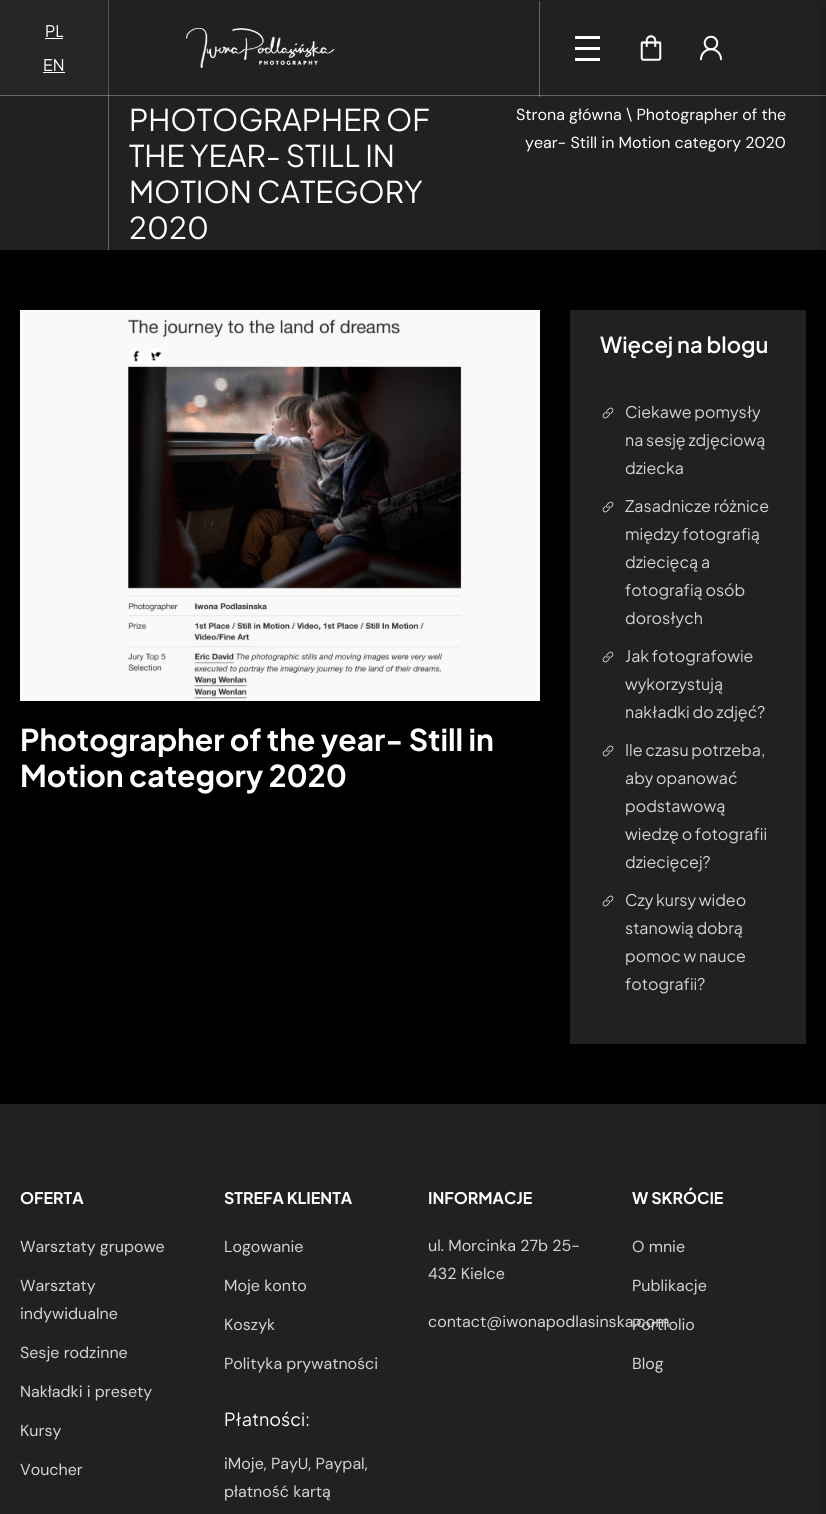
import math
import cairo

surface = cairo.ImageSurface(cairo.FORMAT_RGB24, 826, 1514)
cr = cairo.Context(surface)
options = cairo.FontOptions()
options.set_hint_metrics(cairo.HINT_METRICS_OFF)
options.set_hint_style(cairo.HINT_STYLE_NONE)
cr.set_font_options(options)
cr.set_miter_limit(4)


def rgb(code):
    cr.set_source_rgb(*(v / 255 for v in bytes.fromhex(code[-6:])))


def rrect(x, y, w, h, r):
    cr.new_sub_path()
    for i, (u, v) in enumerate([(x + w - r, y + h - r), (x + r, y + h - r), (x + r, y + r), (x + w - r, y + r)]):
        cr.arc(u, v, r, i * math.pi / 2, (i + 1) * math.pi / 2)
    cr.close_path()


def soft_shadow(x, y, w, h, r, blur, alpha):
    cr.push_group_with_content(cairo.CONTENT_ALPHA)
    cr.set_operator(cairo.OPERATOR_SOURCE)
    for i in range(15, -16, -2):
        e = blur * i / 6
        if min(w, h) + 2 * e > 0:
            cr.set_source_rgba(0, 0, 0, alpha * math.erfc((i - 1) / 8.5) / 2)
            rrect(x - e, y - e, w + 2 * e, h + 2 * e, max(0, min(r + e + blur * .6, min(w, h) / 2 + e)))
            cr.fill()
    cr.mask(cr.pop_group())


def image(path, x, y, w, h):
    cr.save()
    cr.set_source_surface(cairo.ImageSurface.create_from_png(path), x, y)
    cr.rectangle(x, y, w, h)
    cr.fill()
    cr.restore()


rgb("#000000")
cr.paint()
for x, y, w, h, color in [
    (0, 0, 826, 250, "#212121"),
    (0, 0, 108, 95, "#262626"),
    (0, 95, 109, 1, "#676767"),
    (108, 0, 1, 96, "#515151"),
    (108, 95, 1, 1, "#858585"),
    (45, 38, 18, 1, "#ffffff"),
    (43, 72, 22, 1, "#ffffff"),
]:
    rgb(color)
    cr.rectangle(x, y, w, h)
    cr.fill()
image("img/1.png", 186, 28, 148, 40)
for x, y, w, h, color in [
    (109, 95, 717, 1, "#646464"),
    (539, 1, 1, 96, "#646464"),
    (539, 95, 1, 1, "#939393"),
    (575, 36, 25, 3, "#ffffff"),
    (575, 47, 25, 3, "#ffffff"),
    (575, 58, 25, 3, "#ffffff"),
]:
    rgb(color)
    cr.rectangle(x, y, w, h)
    cr.fill()
image("img/2.png", 640, 35, 22, 26)
image("img/3.png", 700, 35, 22, 26)
rgb("#646464")
cr.rectangle(108, 96, 1, 154)
cr.fill()
image("img/4.png", 20, 310, 520, 391)
rgb("#212121")
cr.rectangle(570, 310, 236, 734)
cr.fill()
image("img/5.png", 602, 407, 12, 12)
image("img/5.png", 602, 501, 12, 12)
image("img/5.png", 602, 651, 12, 12)
image("img/5.png", 602, 745, 12, 12)
image("img/5.png", 602, 895, 12, 12)
cr.rectangle(0, 1104, 826, 410)
cr.fill()
rgb("#000000")
soft_shadow(823, 3, 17, 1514, 0, 4.5, 0.2)
cr.select_font_face("Plus Jakarta Sans")
cr.set_font_size(16)
rgb("#ffffff")
cr.move_to(45, 37)
cr.show_text("PL")
cr.move_to(43, 71)
cr.show_text("EN")
cr.set_font_size(30)
for x, y, s in [
    (129, 131, "PHOTOGRAPHER OF"),
    (129, 167, "THE YEAR- STILL IN"),
    (129, 203, "MOTION CATEGORY"),
    (129, 239, "2020"),
]:
    cr.move_to(x, y)
    cr.show_text(s)
cr.select_font_face("DM Sans")
cr.set_font_size(16)
for x, y, s in [
    (516, 120, "Strona główna"),
    (626, 120, "\\ Photographer of the"),
    (525, 148, "year- Still in Motion category 2020"),
]:
    cr.move_to(x, y)
    cr.show_text(s)
cr.select_font_face("Plus Jakarta Sans", cairo.FONT_SLANT_NORMAL, cairo.FONT_WEIGHT_BOLD)
cr.set_font_size(30)
cr.move_to(20, 751)
cr.show_text("Photographer of the year- Still in")
cr.move_to(20, 787)
cr.show_text("Motion category 2020")
cr.select_font_face("Plus Jakarta Sans SemiBold")
cr.set_font_size(22)
cr.move_to(600, 353)
cr.show_text("Więcej na blogu")
cr.select_font_face("Plus Jakarta Sans")
cr.set_font_size(16)
rgb("#d4d4d4")
for x, y, s in [
    (625, 418, "Ciekawe pomysły"),
    (625, 446, "na sesję zdjęciową"),
    (625, 474, "dziecka"),
    (625, 512, "Zasadnicze różnice"),
    (625, 540, "między fotografią"),
    (625, 568, "dziecięcą a"),
    (625, 596, "fotografią osób"),
    (625, 624, "dorosłych"),
    (625, 662, "Jak fotografowie"),
    (625, 690, "wykorzystują"),
    (625, 718, "nakładki do zdjęć?"),
    (625, 756, "Ile czasu potrzeba,"),
    (625, 784, "aby opanować"),
    (625, 812, "podstawową"),
    (625, 840, "wiedzę o fotografii"),
    (625, 868, "dziecięcej?"),
    (625, 906, "Czy kursy wideo"),
    (625, 934, "stanowią dobrą"),
    (625, 962, "pomoc w nauce"),
    (625, 990, "fotografii?"),
]:
    cr.move_to(x, y)
    cr.show_text(s)
cr.select_font_face("Plus Jakarta Sans", cairo.FONT_SLANT_NORMAL, cairo.FONT_WEIGHT_BOLD)
rgb("#ffffff")
cr.move_to(20, 1204)
cr.show_text("OFERTA")
cr.select_font_face("DM Sans")
rgb("#d4d4d4")
for x, y, s in [
    (20, 1252, "Warsztaty grupowe"),
    (20, 1291, "Warsztaty"),
    (20, 1319, "indywidualne"),
    (20, 1358, "Sesje rodzinne"),
    (20, 1397, "Nakładki i presety"),
    (20, 1436, "Kursy"),
    (20, 1475, "Voucher"),
]:
    cr.move_to(x, y)
    cr.show_text(s)
cr.select_font_face("Plus Jakarta Sans", cairo.FONT_SLANT_NORMAL, cairo.FONT_WEIGHT_BOLD)
rgb("#ffffff")
cr.move_to(224, 1204)
cr.show_text("STREFA KLIENTA")
cr.select_font_face("DM Sans")
rgb("#d4d4d4")
for x, y, s in [
    (224, 1252, "Logowanie"),
    (224, 1291, "Moje konto"),
    (224, 1330, "Koszyk"),
    (224, 1369, "Polityka prywatności"),
]:
    cr.move_to(x, y)
    cr.show_text(s)
cr.select_font_face("Plus Jakarta Sans")
cr.set_font_size(18)
rgb("#ffffff")
cr.move_to(224, 1426)
cr.show_text("Płatności:")
cr.select_font_face("DM Sans")
cr.set_font_size(16)
rgb("#d4d4d4")
cr.move_to(224, 1469)
cr.show_text("iMoje, PayU, Paypal,")
cr.move_to(224, 1497)
cr.show_text("płatność kartą")
cr.select_font_face("Plus Jakarta Sans", cairo.FONT_SLANT_NORMAL, cairo.FONT_WEIGHT_BOLD)
rgb("#ffffff")
cr.move_to(428, 1204)
cr.show_text("INFORMACJE")
cr.select_font_face("DM Sans")
rgb("#d4d4d4")
for x, y, s in [
    (428, 1251, "ul. Morcinka 27b 25-"),
    (428, 1279, "432 Kielce"),
    (428, 1327, "contact@iwonapodlasinska.com"),
]:
    cr.move_to(x, y)
    cr.show_text(s)
cr.select_font_face("Plus Jakarta Sans", cairo.FONT_SLANT_NORMAL, cairo.FONT_WEIGHT_BOLD)
rgb("#ffffff")
cr.move_to(632, 1204)
cr.show_text("W SKRÓCIE")
cr.select_font_face("DM Sans")
rgb("#d4d4d4")
for x, y, s in [
    (632, 1252, "O mnie"),
    (632, 1291, "Publikacje"),
    (632, 1330, "Portfolio"),
    (632, 1369, "Blog"),
]:
    cr.move_to(x, y)
    cr.show_text(s)
surface.write_to_png("page.png")
